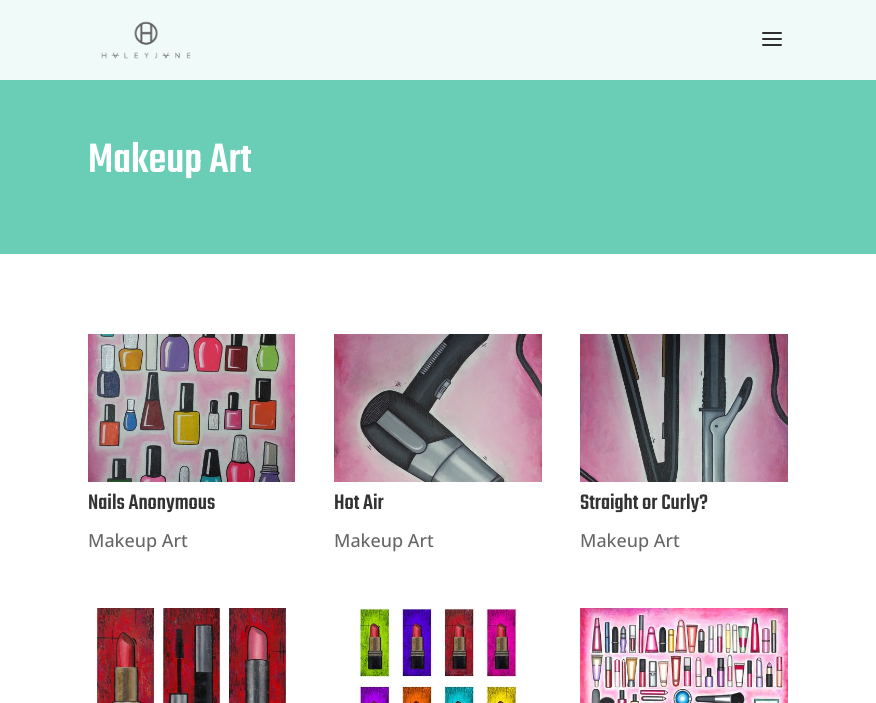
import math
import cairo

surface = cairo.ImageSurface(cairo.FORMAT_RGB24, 876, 703)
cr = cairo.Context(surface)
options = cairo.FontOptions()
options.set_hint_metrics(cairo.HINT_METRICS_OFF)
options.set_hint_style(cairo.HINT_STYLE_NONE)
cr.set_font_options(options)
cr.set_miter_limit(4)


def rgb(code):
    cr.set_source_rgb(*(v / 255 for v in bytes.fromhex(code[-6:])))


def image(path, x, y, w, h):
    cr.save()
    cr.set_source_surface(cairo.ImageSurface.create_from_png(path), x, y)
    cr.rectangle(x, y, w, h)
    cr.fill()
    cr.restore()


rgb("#ffffff")
cr.paint()
rgb("#f0faf8")
cr.rectangle(0, 0, 876, 80)
cr.fill()
image("img/1.png", 101, 21, 90, 38)
image("img/2.png", 762, 32, 20, 14)
rgb("#6aceb6")
cr.rectangle(0, 80, 876, 174)
cr.fill()
image("img/3.png", 88, 334, 207, 148)
image("img/4.png", 334, 334, 208, 148)
image("img/5.png", 580, 334, 208, 148)
image("img/6.png", 96, 608, 191, 95)
image("img/7.png", 359, 608, 158, 95)
image("img/8.png", 580, 608, 208, 95)
cr.select_font_face("Teko Light")
cr.set_font_size(45)
rgb("#ffffff")
cr.move_to(88, 172)
cr.show_text("Makeup Art")
cr.set_font_size(23)
rgb("#333333")
cr.move_to(88, 509)
cr.show_text("Nails Anonymous")
cr.select_font_face("Open Sans Medium")
cr.set_font_size(18)
rgb("#666666")
cr.move_to(88, 547)
cr.show_text("Makeup Art")
cr.select_font_face("Teko Light")
cr.set_font_size(23)
rgb("#333333")
cr.move_to(334, 509)
cr.show_text("Hot Air")
cr.select_font_face("Open Sans Medium")
cr.set_font_size(18)
rgb("#666666")
cr.move_to(334, 547)
cr.show_text("Makeup Art")
cr.select_font_face("Teko Light")
cr.set_font_size(23)
rgb("#333333")
cr.move_to(580, 509)
cr.show_text("Straight or Curly?")
cr.select_font_face("Open Sans Medium")
cr.set_font_size(18)
rgb("#666666")
cr.move_to(580, 547)
cr.show_text("Makeup Art")
surface.write_to_png("page.png")
